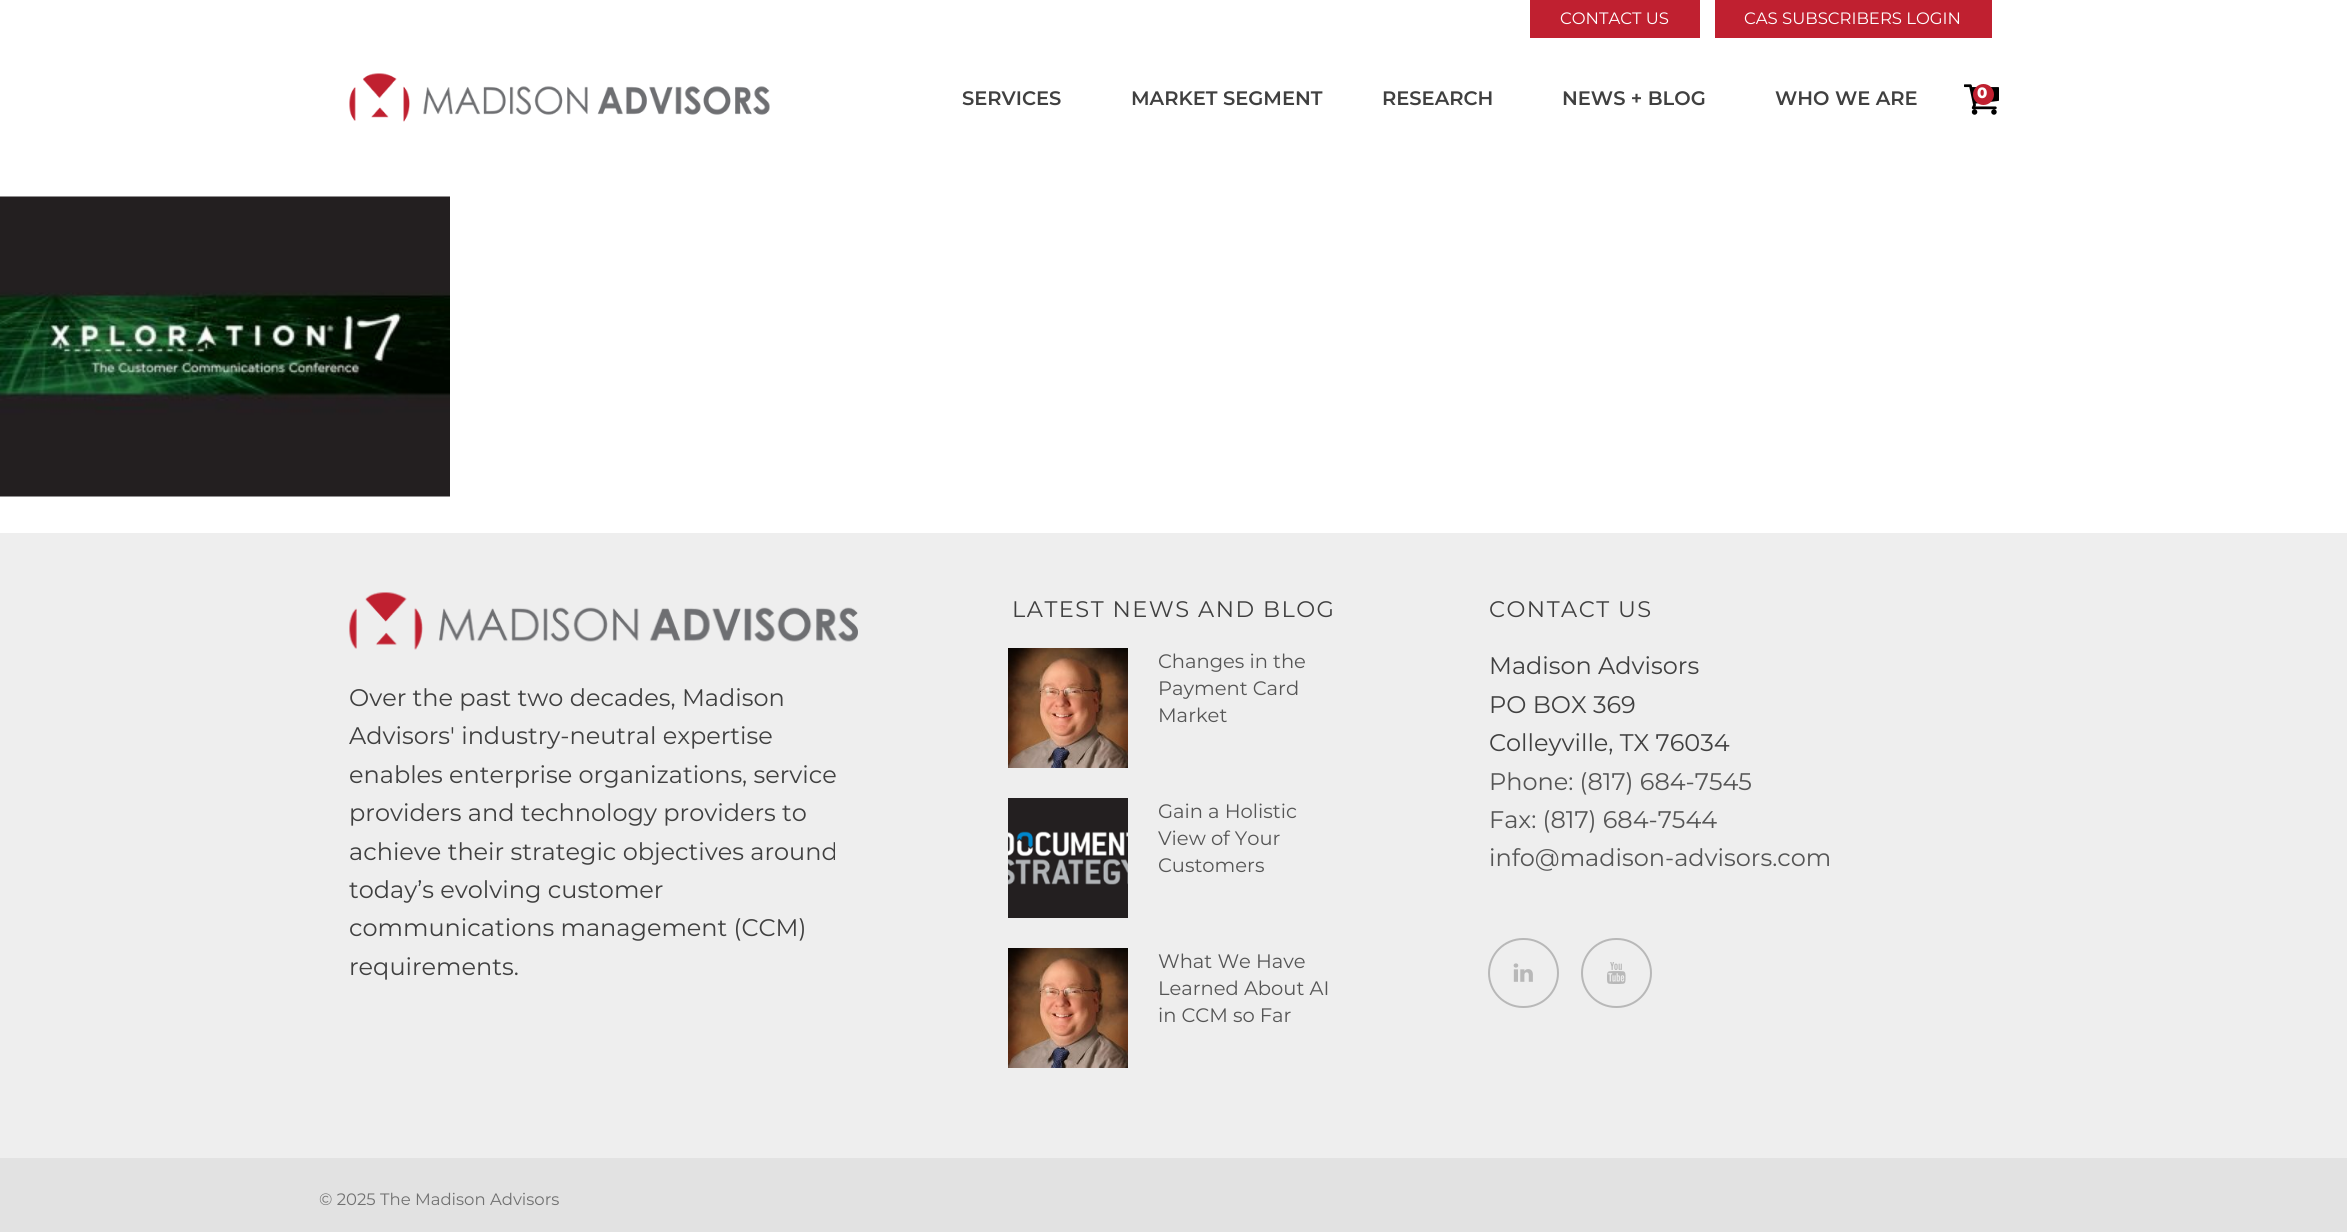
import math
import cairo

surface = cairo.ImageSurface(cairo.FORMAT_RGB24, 2347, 1232)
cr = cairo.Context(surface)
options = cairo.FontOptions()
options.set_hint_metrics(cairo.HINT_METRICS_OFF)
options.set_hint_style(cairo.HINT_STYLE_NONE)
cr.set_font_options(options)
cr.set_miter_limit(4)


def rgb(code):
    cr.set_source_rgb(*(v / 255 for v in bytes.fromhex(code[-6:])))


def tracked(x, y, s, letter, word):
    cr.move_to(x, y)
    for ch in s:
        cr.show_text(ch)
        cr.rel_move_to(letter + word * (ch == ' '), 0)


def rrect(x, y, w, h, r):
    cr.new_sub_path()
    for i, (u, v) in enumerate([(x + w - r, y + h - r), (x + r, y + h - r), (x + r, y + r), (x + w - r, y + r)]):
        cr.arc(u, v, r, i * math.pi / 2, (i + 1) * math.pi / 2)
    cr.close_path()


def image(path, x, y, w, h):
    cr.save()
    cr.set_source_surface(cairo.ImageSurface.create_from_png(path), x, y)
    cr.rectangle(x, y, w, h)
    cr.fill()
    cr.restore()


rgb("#ffffff")
cr.paint()
rgb("#c02030")
cr.rectangle(1530, 0, 170, 38)
cr.fill()
cr.rectangle(1715, 0, 277, 38)
cr.fill()
image("img/1.png", 349, 73, 421, 49)
image("img/2.png", 1964, 84, 35, 31)
cr.arc(1983.5, 94.5, 10.5, 0, 2 * math.pi)
cr.fill()
image("img/3.png", 0, 196, 450, 301)
rgb("#eeeeee")
cr.rectangle(0, 533, 2347, 625)
cr.fill()
image("img/4.png", 349, 592, 509, 58)
image("img/5.png", 1008, 648, 120, 120)
image("img/6.png", 1008, 798, 120, 120)
image("img/7.png", 1008, 948, 120, 120)
rrect(1489, 939, 69, 68, 34)
rgb("#b8b8b8")
cr.stroke()
image("img/8.png", 1513, 963, 20, 19)
rrect(1582, 939, 69, 68, 34)
cr.stroke()
image("img/9.png", 1607, 962, 19, 22)
rgb("#e2e2e2")
cr.rectangle(0, 1158, 2347, 74)
cr.fill()
cr.select_font_face("Montserrat")
cr.set_font_size(16.5)
rgb("#ffffff")
cr.move_to(1560, 24)
cr.show_text("CONTACT US")
cr.move_to(1744, 24)
cr.show_text("CAS SUBSCRIBERS LOGIN")
cr.select_font_face("Montserrat SemiBold")
cr.set_font_size(19.5)
rgb("#404040")
for x, y, s in [
    (962, 105, "SERVICES"),
    (1131, 105, "MARKET SEGMENT"),
    (1382, 105, "RESEARCH"),
    (1562, 105, "NEWS + BLOG"),
    (1775, 105, "WHO WE ARE"),
]:
    cr.move_to(x, y)
    cr.show_text(s)
cr.select_font_face("Montserrat ExtraBold")
cr.set_font_size(15)
rgb("#ffffff")
cr.move_to(1977, 98)
cr.show_text("0")
cr.select_font_face("Montserrat")
cr.set_font_size(24)
rgb("#404040")
for x, y, s in [
    (349, 706, "Over the past two decades, Madison"),
    (349, 744, "Advisors' industry-neutral expertise"),
    (349, 783, "enables enterprise organizations, service"),
    (349, 821, "providers and technology providers to"),
    (349, 860, "achieve their strategic objectives around"),
    (349, 898, "today’s evolving customer"),
    (349, 936, "communications management (CCM)"),
    (349, 975, "requirements."),
]:
    cr.move_to(x, y)
    cr.show_text(s)
cr.set_font_size(22.5)
tracked(1012, 617, "LATEST NEWS AND BLOG", 1.5, 0)
cr.set_font_size(19.5)
rgb("#555555")
for x, y, s in [
    (1158, 668, "Changes in the"),
    (1158, 695, "Payment Card"),
    (1158, 722, "Market"),
    (1158, 818, "Gain a Holistic"),
    (1158, 845, "View of Your"),
    (1158, 872, "Customers"),
    (1158, 968, "What We Have"),
    (1158, 995, "Learned About AI"),
    (1158, 1022, "in CCM so Far"),
]:
    cr.move_to(x, y)
    cr.show_text(s)
cr.set_font_size(22.5)
rgb("#404040")
tracked(1489, 617, "CONTACT US", 1.5, 0)
cr.set_font_size(24)
for x, y, s in [
    (1489, 674, "Madison Advisors"),
    (1489, 713, "PO BOX 369"),
    (1489, 751, "Colleyville, TX 76034"),
]:
    cr.move_to(x, y)
    cr.show_text(s)
rgb("#555555")
for x, y, s in [
    (1489, 790, "Phone: (817) 684-7545"),
    (1489, 828, "Fax: (817) 684-7544"),
    (1489, 866, "info@madison-advisors.com"),
]:
    cr.move_to(x, y)
    cr.show_text(s)
cr.set_font_size(16.5)
rgb("#717171")
cr.move_to(319, 1205)
cr.show_text("© 2025 The Madison Advisors")
surface.write_to_png("page.png")
